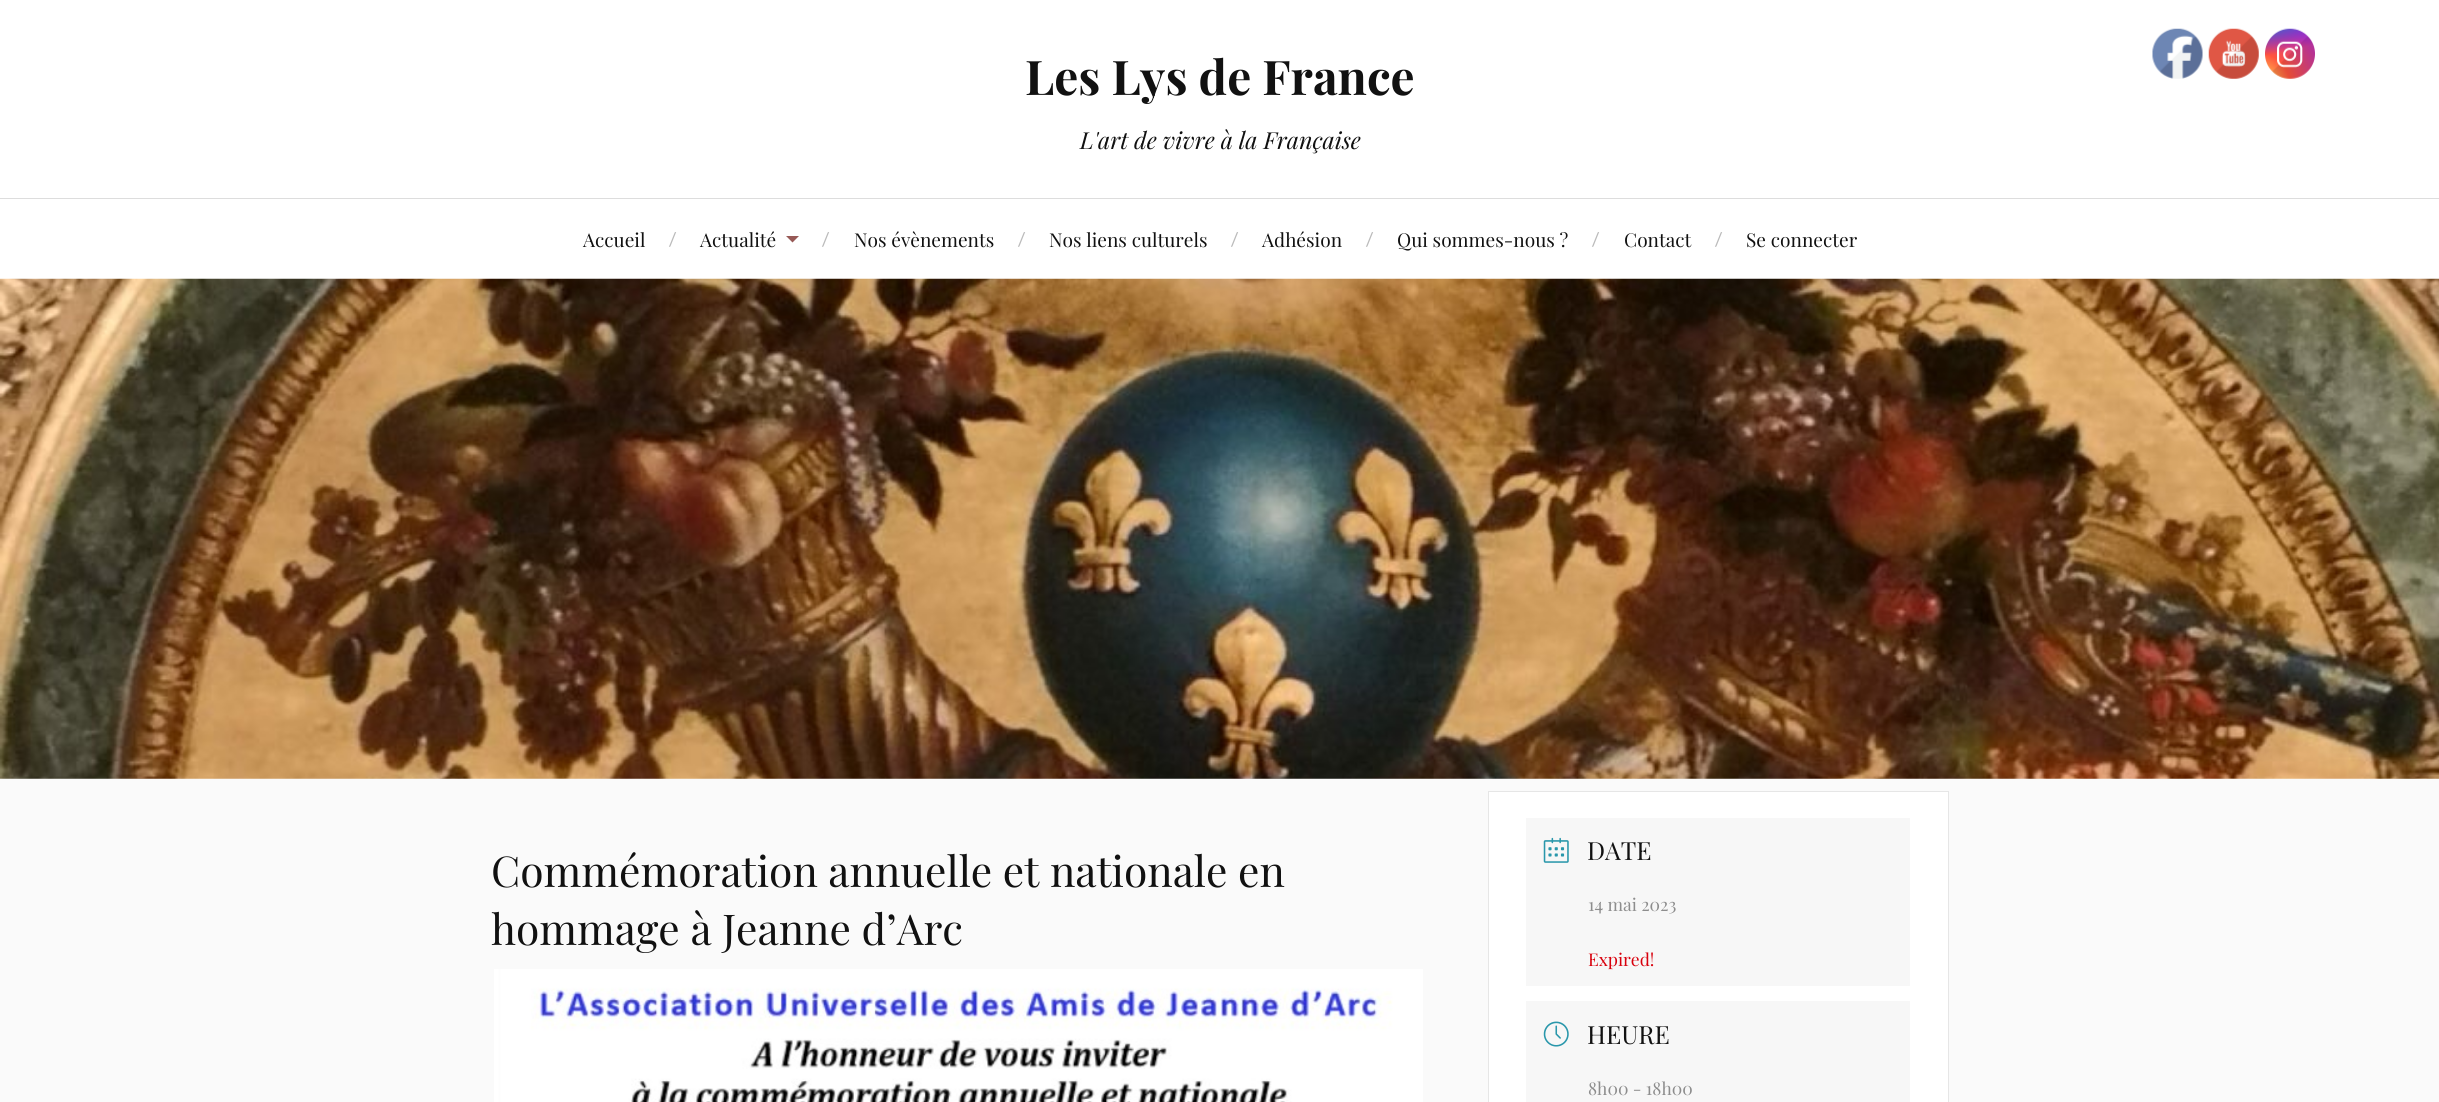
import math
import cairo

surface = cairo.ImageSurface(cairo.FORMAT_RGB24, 2439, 1102)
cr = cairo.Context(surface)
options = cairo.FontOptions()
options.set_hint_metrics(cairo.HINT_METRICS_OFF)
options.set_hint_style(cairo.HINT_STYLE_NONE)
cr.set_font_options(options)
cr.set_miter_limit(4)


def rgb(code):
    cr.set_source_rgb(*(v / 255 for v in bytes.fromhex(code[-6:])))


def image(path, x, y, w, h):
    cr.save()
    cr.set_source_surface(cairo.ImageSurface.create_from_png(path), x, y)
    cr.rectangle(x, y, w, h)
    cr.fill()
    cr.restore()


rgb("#fafafa")
cr.paint()
rgb("#ffffff")
cr.rectangle(0, 0, 2439, 198)
cr.fill()
image("img/1.png", 2152, 28, 51, 51)
image("img/2.png", 2208, 28, 51, 51)
image("img/3.png", 2265, 28, 50, 51)
cr.rectangle(0, 199, 2439, 80)
cr.fill()
rgb("#dddddd")
cr.rectangle(0, 198, 2439, 1)
cr.fill()
rgb("#975956")
cr.new_path()
cr.move_to(786, 236)
cr.line_to(799, 236)
cr.line_to(792.5, 242.5)
cr.close_path()
cr.fill()
image("img/4.png", 0, 278, 2439, 501)
image("img/5.png", 494, 969, 929, 133)
rgb("#ffffff")
cr.rectangle(1488.5, 791.5, 460, 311)
cr.fill_preserve()
rgb("#e6e6e6")
cr.set_line_width(1)
cr.stroke()
rgb("#f7f7f7")
cr.rectangle(1526, 818, 384, 168)
cr.fill()
image("img/6.png", 1543, 837, 26, 26)
cr.rectangle(1526, 1001, 384, 101)
cr.fill()
image("img/7.png", 1543, 1021, 26, 26)
cr.select_font_face("Playfair Display", cairo.FONT_SLANT_NORMAL, cairo.FONT_WEIGHT_BOLD)
cr.set_font_size(47.75)
rgb("#111111")
cr.move_to(1025, 95)
cr.show_text("Les Lys de France")
cr.select_font_face("Playfair Display", cairo.FONT_SLANT_ITALIC)
cr.set_font_size(23.4)
cr.move_to(1080, 149)
cr.show_text("L'art de vivre à la Française")
cr.select_font_face("Playfair Display")
cr.set_font_size(19.1)
cr.move_to(583, 247)
cr.show_text("Accueil")
cr.select_font_face("Lato")
cr.set_font_size(19)
rgb("#bbbbbb")
cr.move_to(669, 246)
cr.show_text("/")
cr.select_font_face("Playfair Display")
cr.set_font_size(19.1)
rgb("#111111")
cr.move_to(700, 247)
cr.show_text("Actualité")
cr.select_font_face("Lato")
cr.set_font_size(19)
rgb("#bbbbbb")
cr.move_to(822, 246)
cr.show_text("/")
cr.select_font_face("Playfair Display")
cr.set_font_size(19.1)
rgb("#111111")
cr.move_to(854, 247)
cr.show_text("Nos évènements")
cr.select_font_face("Lato")
cr.set_font_size(19)
rgb("#bbbbbb")
cr.move_to(1018, 246)
cr.show_text("/")
cr.select_font_face("Playfair Display")
cr.set_font_size(19.1)
rgb("#111111")
cr.move_to(1049, 247)
cr.show_text("Nos liens culturels")
cr.select_font_face("Lato")
cr.set_font_size(19)
rgb("#bbbbbb")
cr.move_to(1231, 246)
cr.show_text("/")
cr.select_font_face("Playfair Display")
cr.set_font_size(19.1)
rgb("#111111")
cr.move_to(1262, 247)
cr.show_text("Adhésion")
cr.select_font_face("Lato")
cr.set_font_size(19)
rgb("#bbbbbb")
cr.move_to(1366, 246)
cr.show_text("/")
cr.select_font_face("Playfair Display")
cr.set_font_size(19.1)
rgb("#111111")
cr.move_to(1397, 247)
cr.show_text("Qui sommes-nous ?")
cr.select_font_face("Lato")
cr.set_font_size(19)
rgb("#bbbbbb")
cr.move_to(1592, 246)
cr.show_text("/")
cr.select_font_face("Playfair Display")
cr.set_font_size(19.1)
rgb("#111111")
cr.move_to(1624, 247)
cr.show_text("Contact")
cr.select_font_face("Lato")
cr.set_font_size(19)
rgb("#bbbbbb")
cr.move_to(1715, 246)
cr.show_text("/")
cr.select_font_face("Playfair Display")
cr.set_font_size(19.1)
rgb("#111111")
cr.move_to(1746, 247)
cr.show_text("Se connecter")
cr.set_font_size(42.5)
cr.move_to(491, 887)
cr.show_text("Commémoration annuelle et nationale en")
cr.move_to(491, 945)
cr.show_text("hommage à Jeanne d’Arc")
cr.set_font_size(25)
cr.move_to(1587, 860)
cr.show_text("DATE")
cr.set_font_size(17.5)
rgb("#8d8d8d")
cr.move_to(1588, 911)
cr.show_text("14 mai 2023")
rgb("#d8000c")
cr.move_to(1588, 966)
cr.show_text("Expired!")
cr.set_font_size(25)
rgb("#111111")
cr.move_to(1587, 1044)
cr.show_text("HEURE")
cr.set_font_size(17.5)
rgb("#8d8d8d")
cr.move_to(1588, 1095)
cr.show_text("8h00 - 18h00")
surface.write_to_png("page.png")
